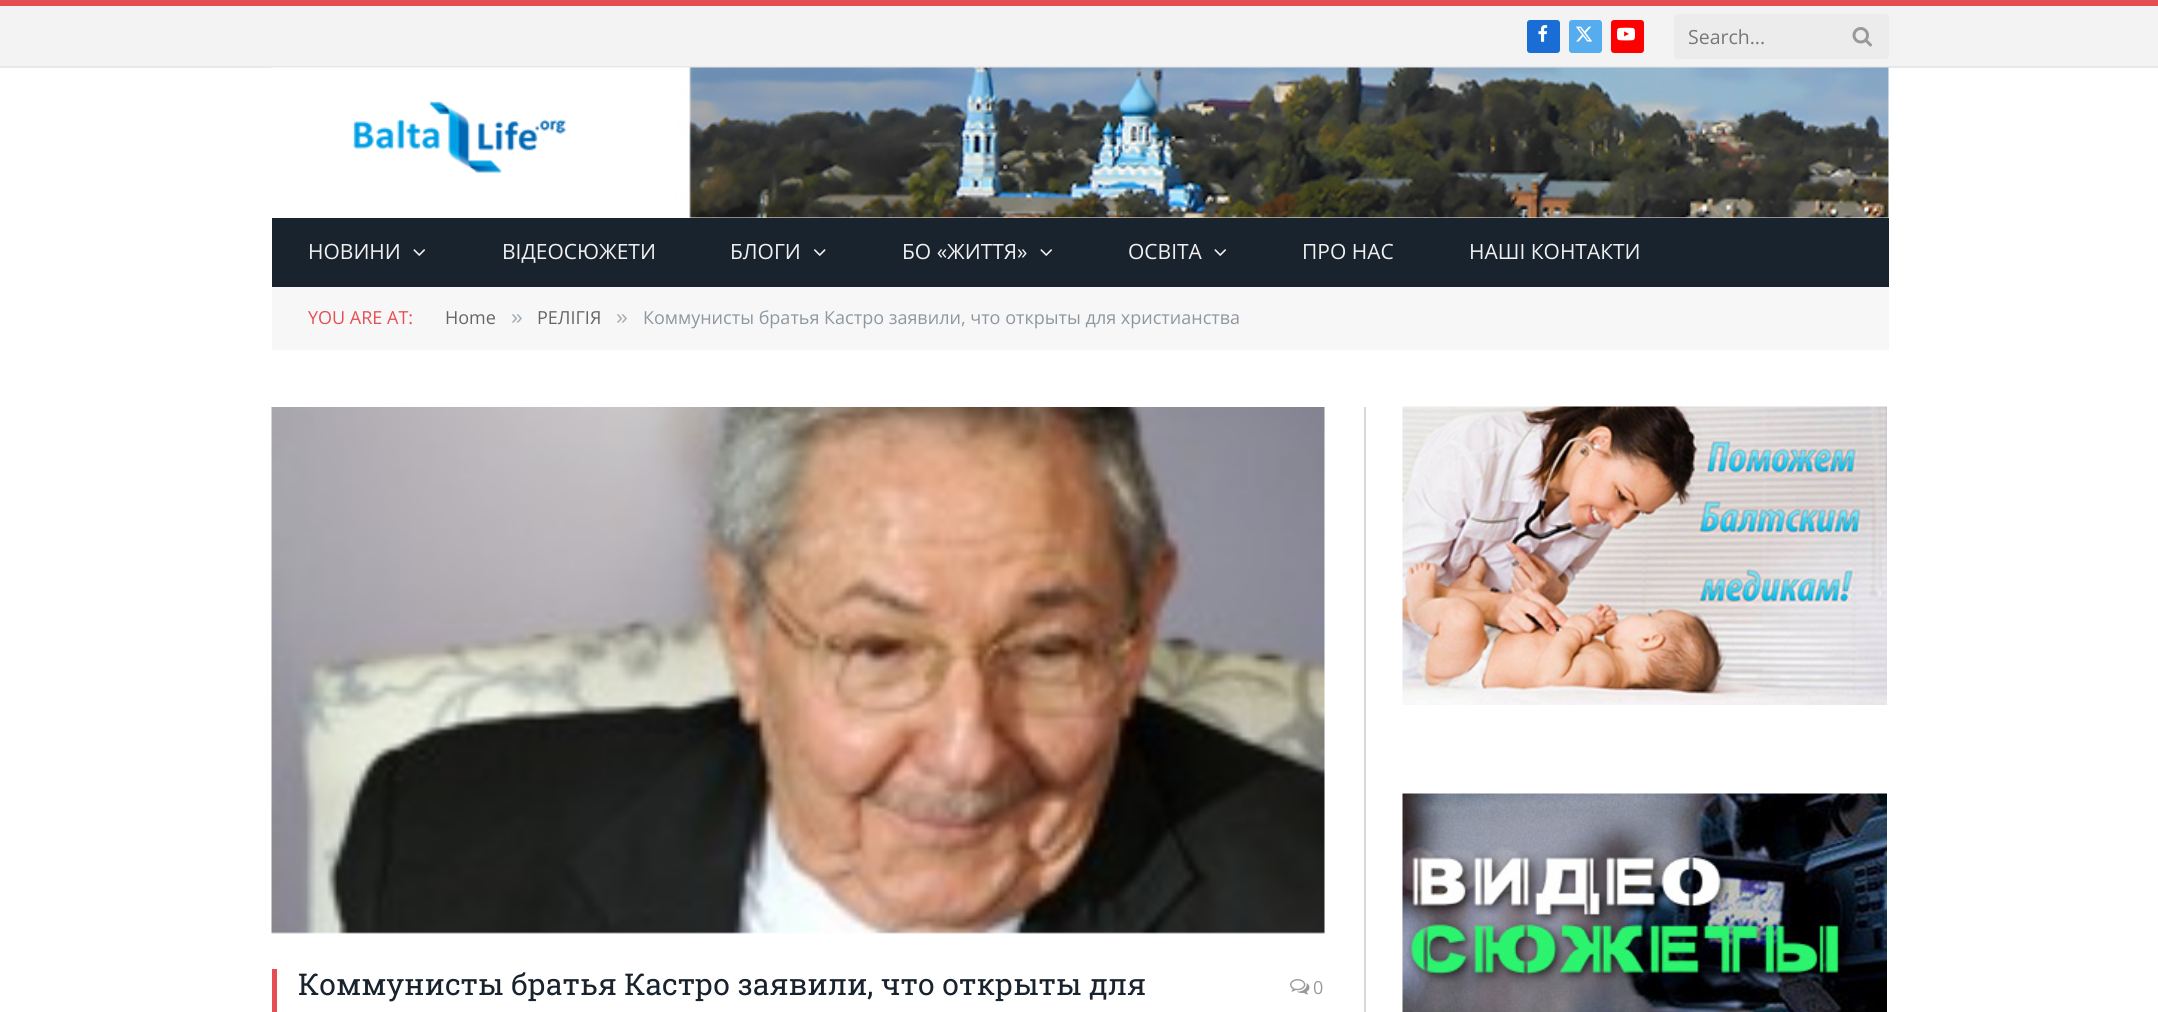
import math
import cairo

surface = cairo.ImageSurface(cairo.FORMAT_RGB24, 2158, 1012)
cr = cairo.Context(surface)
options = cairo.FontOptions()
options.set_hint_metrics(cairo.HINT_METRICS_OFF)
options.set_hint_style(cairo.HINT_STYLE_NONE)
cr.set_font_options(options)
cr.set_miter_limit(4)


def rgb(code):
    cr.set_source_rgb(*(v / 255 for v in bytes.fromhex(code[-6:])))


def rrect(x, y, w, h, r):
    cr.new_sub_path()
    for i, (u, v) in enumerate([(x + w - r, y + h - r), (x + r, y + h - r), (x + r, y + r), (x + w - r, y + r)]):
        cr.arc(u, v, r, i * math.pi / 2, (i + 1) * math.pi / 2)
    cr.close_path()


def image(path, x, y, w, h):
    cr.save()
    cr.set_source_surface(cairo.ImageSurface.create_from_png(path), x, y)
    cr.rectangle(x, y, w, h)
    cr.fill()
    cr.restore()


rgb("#ffffff")
cr.paint()
for x, y, w, h, color in [
    (0, 6, 2158, 60, "#f3f3f3"),
    (0, 0, 2158, 6, "#e54e53"),
    (0, 66, 2158, 2, "#e8e8e8"),
]:
    rgb(color)
    cr.rectangle(x, y, w, h)
    cr.fill()
rgb("#1a6dd4")
rrect(1527, 20, 33, 33, 3)
cr.fill()
image("img/1.png", 1538, 25, 10, 17)
rgb("#55acef")
rrect(1569, 20, 33, 33, 3)
cr.fill()
image("img/2.png", 1575, 26, 18, 16)
rgb("#ff0000")
rrect(1611, 20, 33, 33, 3)
cr.fill()
image("img/3.png", 1617, 27, 18, 14)
rgb("#ececec")
rrect(1674, 14, 215, 45, 3)
cr.fill()
image("img/4.png", 1852, 27, 20, 20)
image("img/5.png", 271, 67, 1618, 151)
image("img/6.png", 353, 101, 213, 72)
rgb("#19232d")
cr.rectangle(272, 218, 1617, 69)
cr.fill()
image("img/7.png", 413, 249, 13, 7)
image("img/8.png", 813, 249, 13, 7)
image("img/7.png", 1040, 249, 13, 7)
image("img/7.png", 1214, 249, 13, 7)
rgb("#f7f7f7")
cr.rectangle(272, 287, 1617, 63)
cr.fill()
image("img/9.png", 271, 407, 1054, 527)
rgb("#e54e53")
cr.rectangle(272, 969, 5, 43)
cr.fill()
image("img/10.png", 1290, 979, 20, 16)
rgb("#d9d9d9")
cr.rectangle(1364, 407, 2, 605)
cr.fill()
image("img/11.png", 1402, 406, 485, 299)
image("img/12.png", 1402, 793, 485, 219)
cr.select_font_face("Open Sans")
cr.set_font_size(19.5)
rgb("#777777")
cr.move_to(1688, 44)
cr.show_text("Search...")
cr.set_font_size(21)
rgb("#f0f0f0")
for x, y, s in [
    (308, 259, "НОВИНИ"),
    (502, 259, "ВІДЕОСЮЖЕТИ"),
    (730, 259, "БЛОГИ"),
    (902, 259, "БО «ЖИТТЯ»"),
    (1128, 259, "ОСВІТА"),
    (1302, 259, "ПРО НАС"),
    (1469, 259, "НАШІ КОНТАКТИ"),
]:
    cr.move_to(x, y)
    cr.show_text(s)
cr.set_font_size(18)
rgb("#e54e53")
cr.move_to(308, 324)
cr.show_text("YOU ARE AT:")
rgb("#666666")
cr.move_to(445, 324)
cr.show_text("Home")
cr.select_font_face("Liberation Sans")
cr.set_font_size(21)
rgb("#a2aab2")
cr.move_to(511, 324)
cr.show_text("»")
cr.select_font_face("Open Sans")
cr.set_font_size(18)
rgb("#666666")
cr.move_to(537, 324)
cr.show_text("РЕЛІГІЯ")
cr.select_font_face("Liberation Sans")
cr.set_font_size(21)
rgb("#a2aab2")
cr.move_to(616, 324)
cr.show_text("»")
cr.select_font_face("Open Sans")
cr.set_font_size(18)
rgb("#8d97a1")
cr.move_to(643, 324)
cr.show_text("Коммунисты братья Кастро заявили, что открыты для христианства")
cr.select_font_face("Roboto Slab")
cr.set_font_size(30)
rgb("#19232d")
cr.move_to(298, 995)
cr.show_text("Коммунисты братья Кастро заявили, что открыты для")
cr.select_font_face("Open Sans")
cr.set_font_size(18)
rgb("#999999")
cr.move_to(1313, 994)
cr.show_text("0")
surface.write_to_png("page.png")
